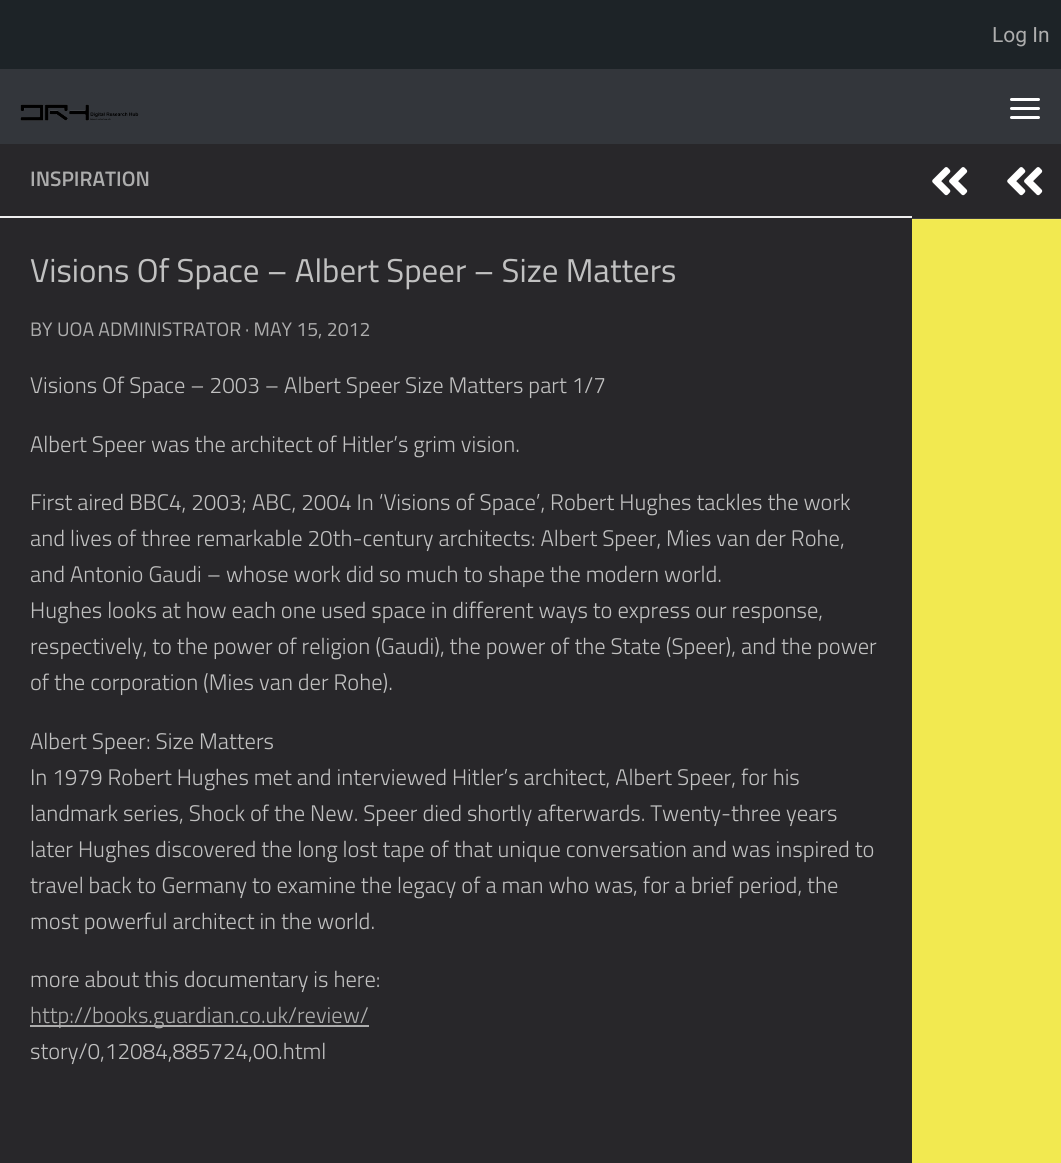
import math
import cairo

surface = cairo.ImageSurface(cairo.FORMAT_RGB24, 1061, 1163)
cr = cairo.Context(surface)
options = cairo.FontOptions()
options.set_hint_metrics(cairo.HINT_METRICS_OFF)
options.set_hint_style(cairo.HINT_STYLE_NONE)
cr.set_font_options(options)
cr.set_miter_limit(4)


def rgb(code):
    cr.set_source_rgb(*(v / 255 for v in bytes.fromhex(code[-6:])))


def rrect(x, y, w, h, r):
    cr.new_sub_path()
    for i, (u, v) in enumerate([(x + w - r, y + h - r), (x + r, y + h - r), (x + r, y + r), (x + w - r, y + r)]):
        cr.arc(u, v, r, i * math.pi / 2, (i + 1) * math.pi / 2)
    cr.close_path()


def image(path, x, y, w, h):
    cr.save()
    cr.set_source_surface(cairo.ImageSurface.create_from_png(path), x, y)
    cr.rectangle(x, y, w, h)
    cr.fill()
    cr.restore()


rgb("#f2e950")
cr.paint()
rgb("#1d2327")
cr.rectangle(0, 0, 1061, 69)
cr.fill()
rgb("#33363b")
cr.rectangle(0, 69, 1061, 75)
cr.fill()
image("img/1.png", 20, 104, 119, 17)
rgb("#ffffff")
rrect(1010, 98, 30, 3, 1.5)
cr.fill()
rrect(1010, 107, 30, 3, 1.5)
cr.fill()
rrect(1010, 116, 30, 3, 1.5)
cr.fill()
for x, y, w, h, color in [
    (912, 219, 149, 1, "#f3eb62"),
    (912, 144, 149, 74, "#28272a"),
    (912, 218, 149, 1, "#3e3d3f"),
]:
    rgb(color)
    cr.rectangle(x, y, w, h)
    cr.fill()
image("img/2.png", 932, 167, 36, 29)
for x, y, w, h, color in [
    (0, 144, 912, 1019, "#28272a"),
    (0, 216, 912, 2, "#eeeeee"),
    (30, 1025, 339, 2, "#adadad"),
]:
    rgb(color)
    cr.rectangle(x, y, w, h)
    cr.fill()
image("img/2.png", 1007, 167, 36, 29)
cr.select_font_face("Roboto")
cr.set_font_size(21)
cr.move_to(992, 42)
cr.show_text("Log In")
cr.select_font_face("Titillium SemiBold")
cr.move_to(30, 186)
cr.show_text("INSPIRATION")
cr.select_font_face("Titillium")
cr.set_font_size(33)
rgb("#c1c1c1")
cr.move_to(30, 282)
cr.show_text("Visions Of Space – Albert Speer – Size Matters")
cr.set_font_size(19.5)
rgb("#adadad")
for x, y, s in [
    (30, 336, "BY"),
    (57, 336, "UOA ADMINISTRATOR"),
    (245, 336, "· MAY 15, 2012"),
]:
    cr.move_to(x, y)
    cr.show_text(s)
cr.select_font_face("Titillium Light")
cr.set_font_size(22.5)
rgb("#c1c1c1")
for x, y, s in [
    (30, 393, "Visions Of Space – 2003 – Albert Speer Size Matters part 1/7"),
    (30, 452, "Albert Speer was the architect of Hitler’s grim vision."),
    (30, 510, "First aired BBC4, 2003; ABC, 2004 In ‘Visions of Space’, Robert Hughes tackles the work"),
    (30, 546, "and lives of three remarkable 20th-century architects: Albert Speer, Mies van der Rohe,"),
    (30, 582, "and Antonio Gaudi – whose work did so much to shape the modern world."),
    (30, 618, "Hughes looks at how each one used space in different ways to express our response,"),
    (30, 654, "respectively, to the power of religion (Gaudi), the power of the State (Speer), and the power"),
    (30, 690, "of the corporation (Mies van der Rohe)."),
    (30, 749, "Albert Speer: Size Matters"),
    (30, 785, "In 1979 Robert Hughes met and interviewed Hitler’s architect, Albert Speer, for his"),
    (30, 821, "landmark series, Shock of the New. Speer died shortly afterwards. Twenty-three years"),
    (30, 857, "later Hughes discovered the long lost tape of that unique conversation and was inspired to"),
    (30, 893, "travel back to Germany to examine the legacy of a man who was, for a brief period, the"),
    (30, 929, "most powerful architect in the world."),
    (30, 987, "more about this documentary is here:"),
]:
    cr.move_to(x, y)
    cr.show_text(s)
rgb("#adadad")
cr.move_to(30, 1023)
cr.show_text("http://books.guardian.co.uk/review/")
rgb("#c1c1c1")
cr.move_to(30, 1059)
cr.show_text("story/0,12084,885724,00.html")
surface.write_to_png("page.png")
